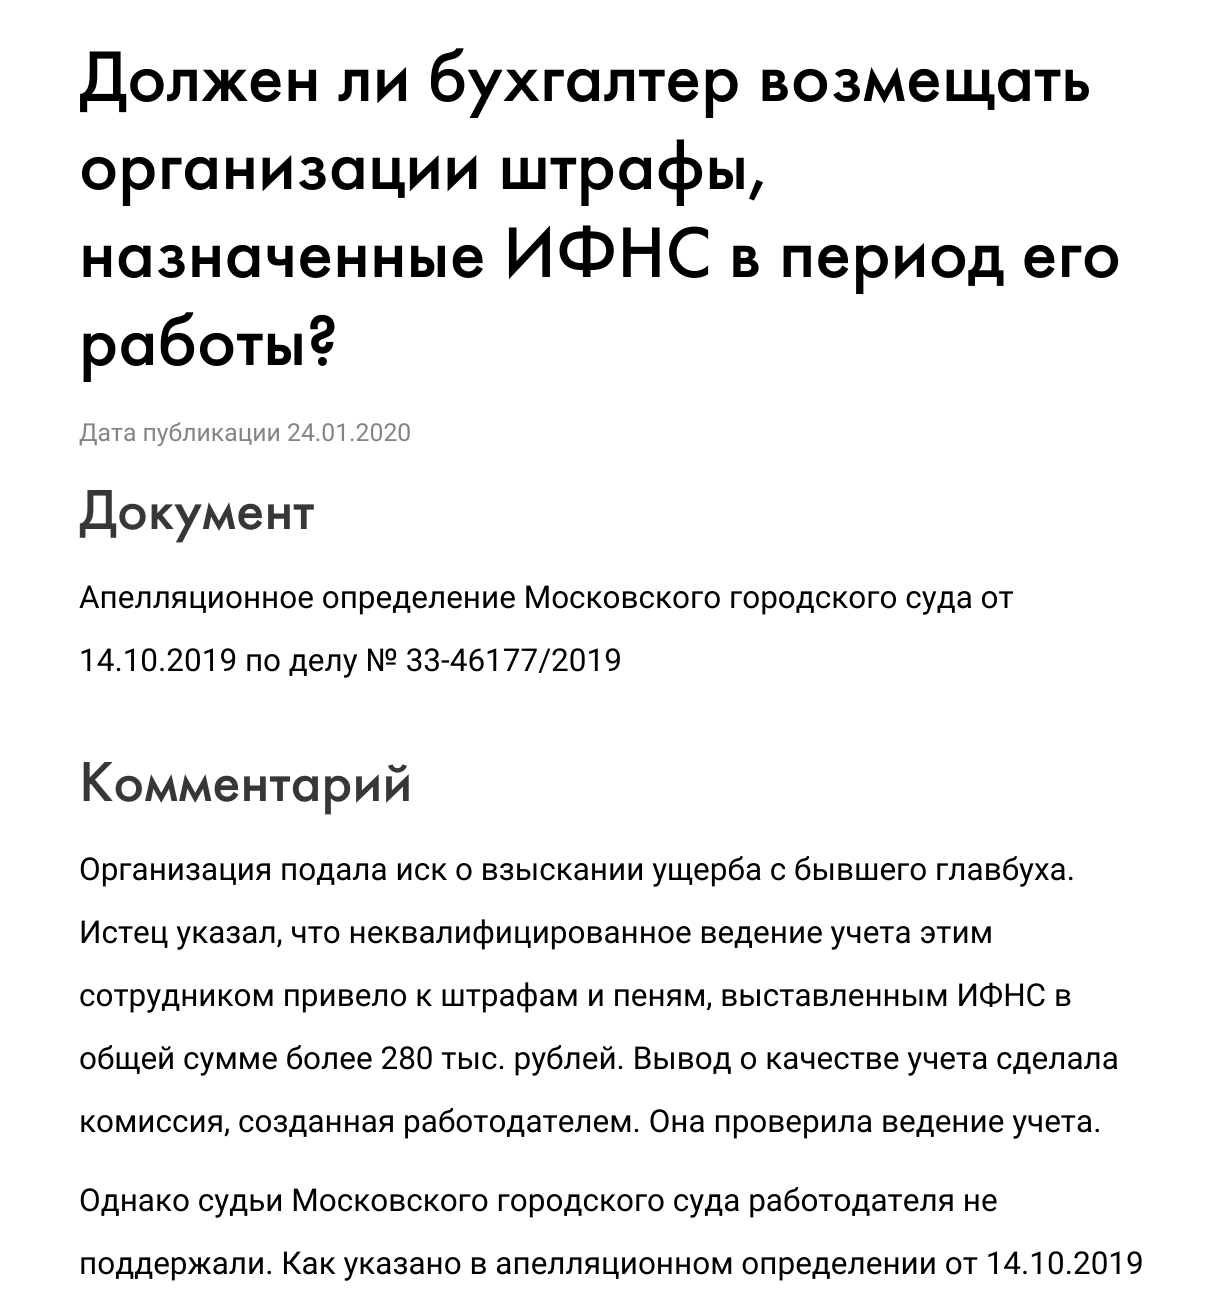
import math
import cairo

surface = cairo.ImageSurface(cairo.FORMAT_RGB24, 1222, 1303)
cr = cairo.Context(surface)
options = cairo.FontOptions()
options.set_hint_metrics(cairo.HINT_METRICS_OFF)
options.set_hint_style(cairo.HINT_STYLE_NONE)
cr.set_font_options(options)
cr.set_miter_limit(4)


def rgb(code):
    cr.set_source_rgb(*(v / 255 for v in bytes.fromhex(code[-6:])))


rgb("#ffffff")
cr.paint()
cr.select_font_face("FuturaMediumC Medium")
cr.set_font_size(74.25)
rgb("#000000")
for x, y, s in [
    (79, 101, "Должен ли бухгалтер возмещать"),
    (79, 189, "организации штрафы,"),
    (79, 277, "назначенные ИФНС в период его"),
    (79, 365, "работы?"),
]:
    cr.move_to(x, y)
    cr.show_text(s)
cr.select_font_face("Roboto")
cr.set_font_size(24.75)
rgb("#848484")
cr.move_to(79, 441)
cr.show_text("Дата публикации 24.01.2020")
cr.select_font_face("FuturaMediumC Medium")
cr.set_font_size(58.5)
rgb("#373737")
cr.move_to(79, 529)
cr.show_text("Документ")
cr.select_font_face("Roboto")
cr.set_font_size(31.5)
rgb("#000000")
cr.move_to(79, 608)
cr.show_text("Апелляционное определение Московского городского суда от")
cr.move_to(79, 671)
cr.show_text("14.10.2019 по делу № 33-46177/2019")
cr.select_font_face("FuturaMediumC Medium")
cr.set_font_size(58.5)
rgb("#373737")
cr.move_to(79, 801)
cr.show_text("Комментарий")
cr.select_font_face("Roboto")
cr.set_font_size(31.5)
rgb("#000000")
for x, y, s in [
    (79, 880, "Организация подала иск о взыскании ущерба с бывшего главбуха."),
    (79, 943, "Истец указал, что неквалифицированное ведение учета этим"),
    (79, 1006, "сотрудником привело к штрафам и пеням, выставленным ИФНС в"),
    (79, 1069, "общей сумме более 280 тыс. рублей. Вывод о качестве учета сделала"),
    (79, 1132, "комиссия, созданная работодателем. Она проверила ведение учета."),
    (79, 1211, "Однако судьи Московского городского суда работодателя не"),
    (79, 1274, "поддержали. Как указано в апелляционном определении от 14.10.2019"),
]:
    cr.move_to(x, y)
    cr.show_text(s)
surface.write_to_png("page.png")
